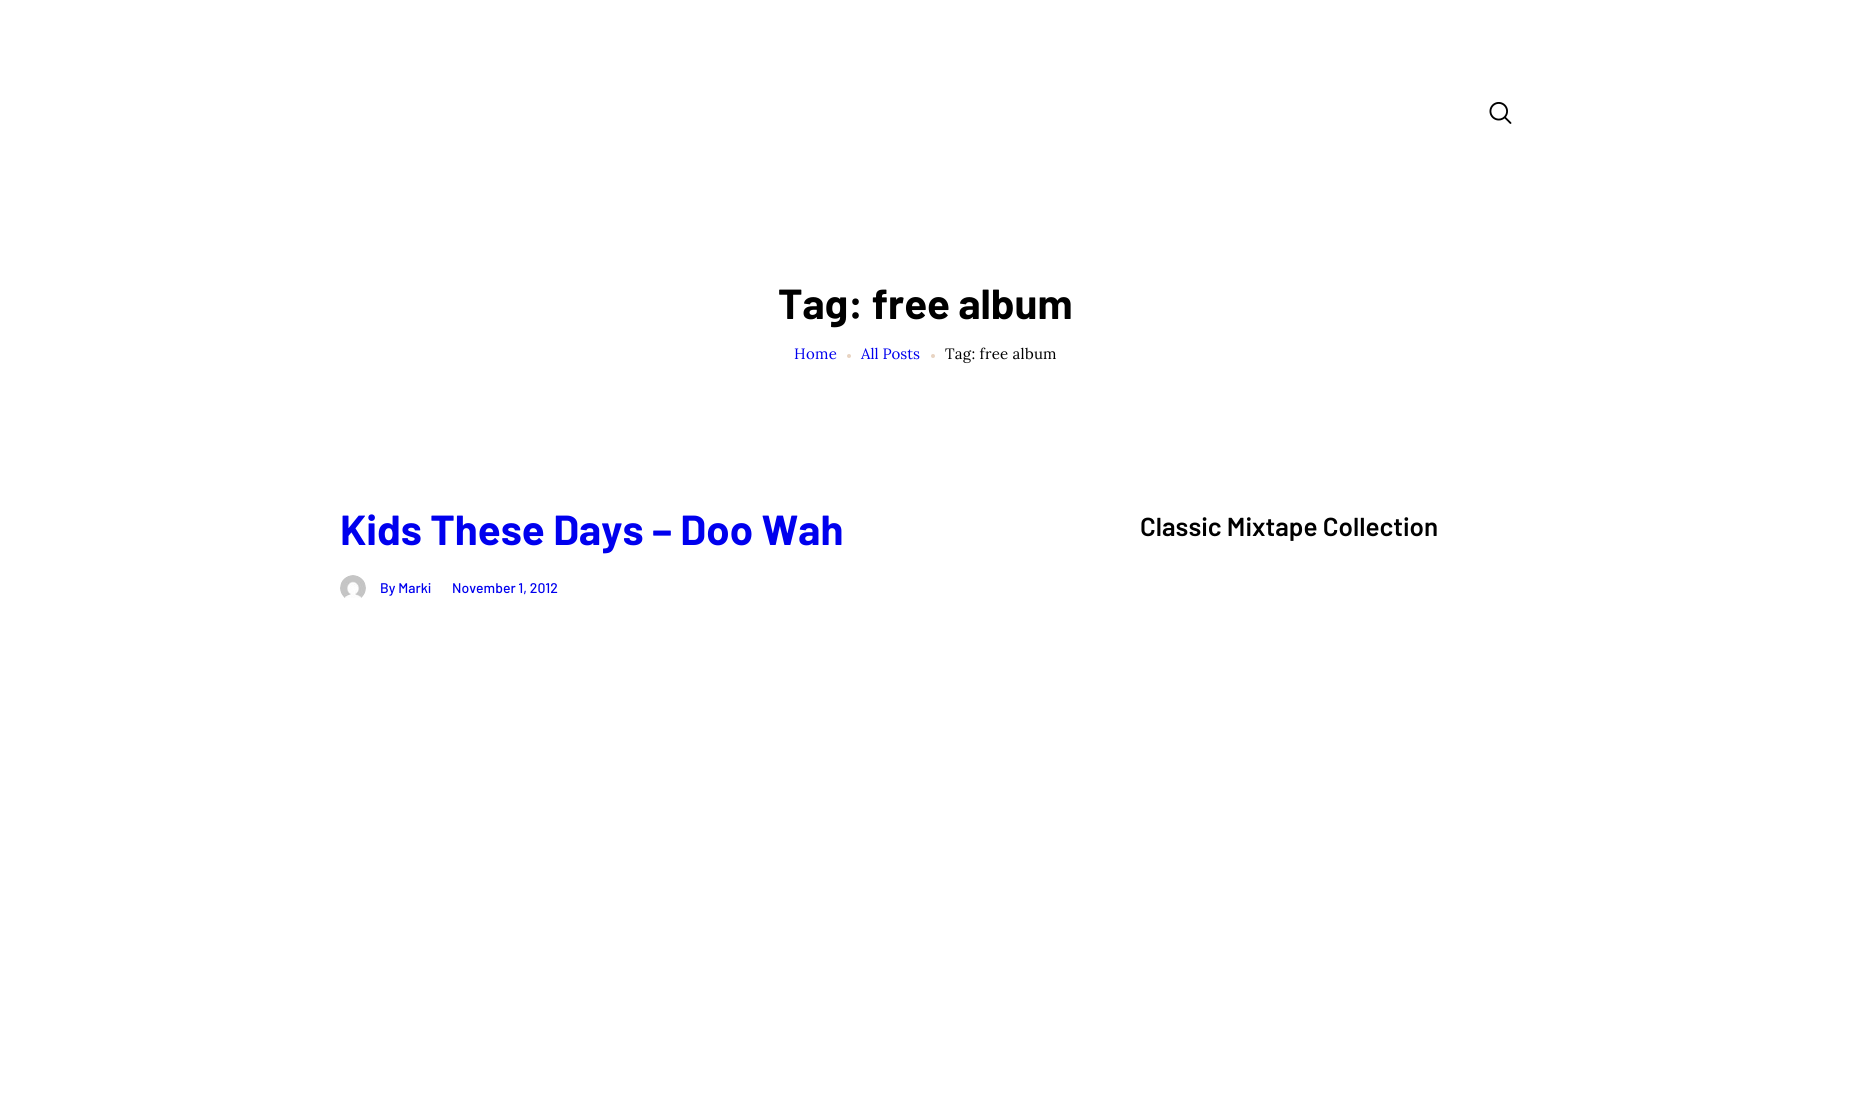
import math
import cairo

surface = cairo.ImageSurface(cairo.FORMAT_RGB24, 1850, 1102)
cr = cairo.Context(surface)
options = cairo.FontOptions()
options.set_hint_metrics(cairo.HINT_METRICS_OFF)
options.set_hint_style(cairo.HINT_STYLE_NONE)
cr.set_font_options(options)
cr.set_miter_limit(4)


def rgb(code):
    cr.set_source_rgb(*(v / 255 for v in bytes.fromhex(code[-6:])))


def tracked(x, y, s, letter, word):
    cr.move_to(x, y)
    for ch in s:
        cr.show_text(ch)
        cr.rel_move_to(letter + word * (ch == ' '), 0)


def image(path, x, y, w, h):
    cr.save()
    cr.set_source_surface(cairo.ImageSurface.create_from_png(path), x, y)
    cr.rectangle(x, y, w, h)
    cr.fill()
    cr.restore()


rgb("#ffffff")
cr.paint()
image("img/1.png", 1489, 102, 23, 22)
rgb("#e8d4c2")
cr.arc(849, 356, 2, 0, 2 * math.pi)
cr.fill()
cr.arc(933, 356, 2, 0, 2 * math.pi)
cr.fill()
image("img/2.png", 340, 575, 26, 23)
cr.select_font_face("Barlow", cairo.FONT_SLANT_NORMAL, cairo.FONT_WEIGHT_BOLD)
cr.set_font_size(42)
rgb("#000000")
cr.move_to(778, 319)
cr.show_text("Tag: free album")
cr.select_font_face("Lora")
cr.set_font_size(15)
rgb("#0000ee")
tracked(794, 359, "Home", 0.25, 0)
cr.move_to(861, 359)
cr.show_text("All Posts")
rgb("#000000")
tracked(945, 359, "Tag: free album", 0.25, 0)
cr.select_font_face("Barlow", cairo.FONT_SLANT_NORMAL, cairo.FONT_WEIGHT_BOLD)
cr.set_font_size(42)
rgb("#0000ee")
cr.move_to(340, 545)
cr.show_text("Kids These Days – Doo Wah")
cr.select_font_face("Barlow Medium")
cr.set_font_size(14)
cr.move_to(380, 593)
cr.show_text("By Marki")
cr.move_to(452, 593)
cr.show_text("November 1, 2012")
cr.select_font_face("Barlow SemiBold")
cr.set_font_size(26)
rgb("#000000")
cr.move_to(1140, 536)
cr.show_text("Classic Mixtape Collection")
surface.write_to_png("page.png")
